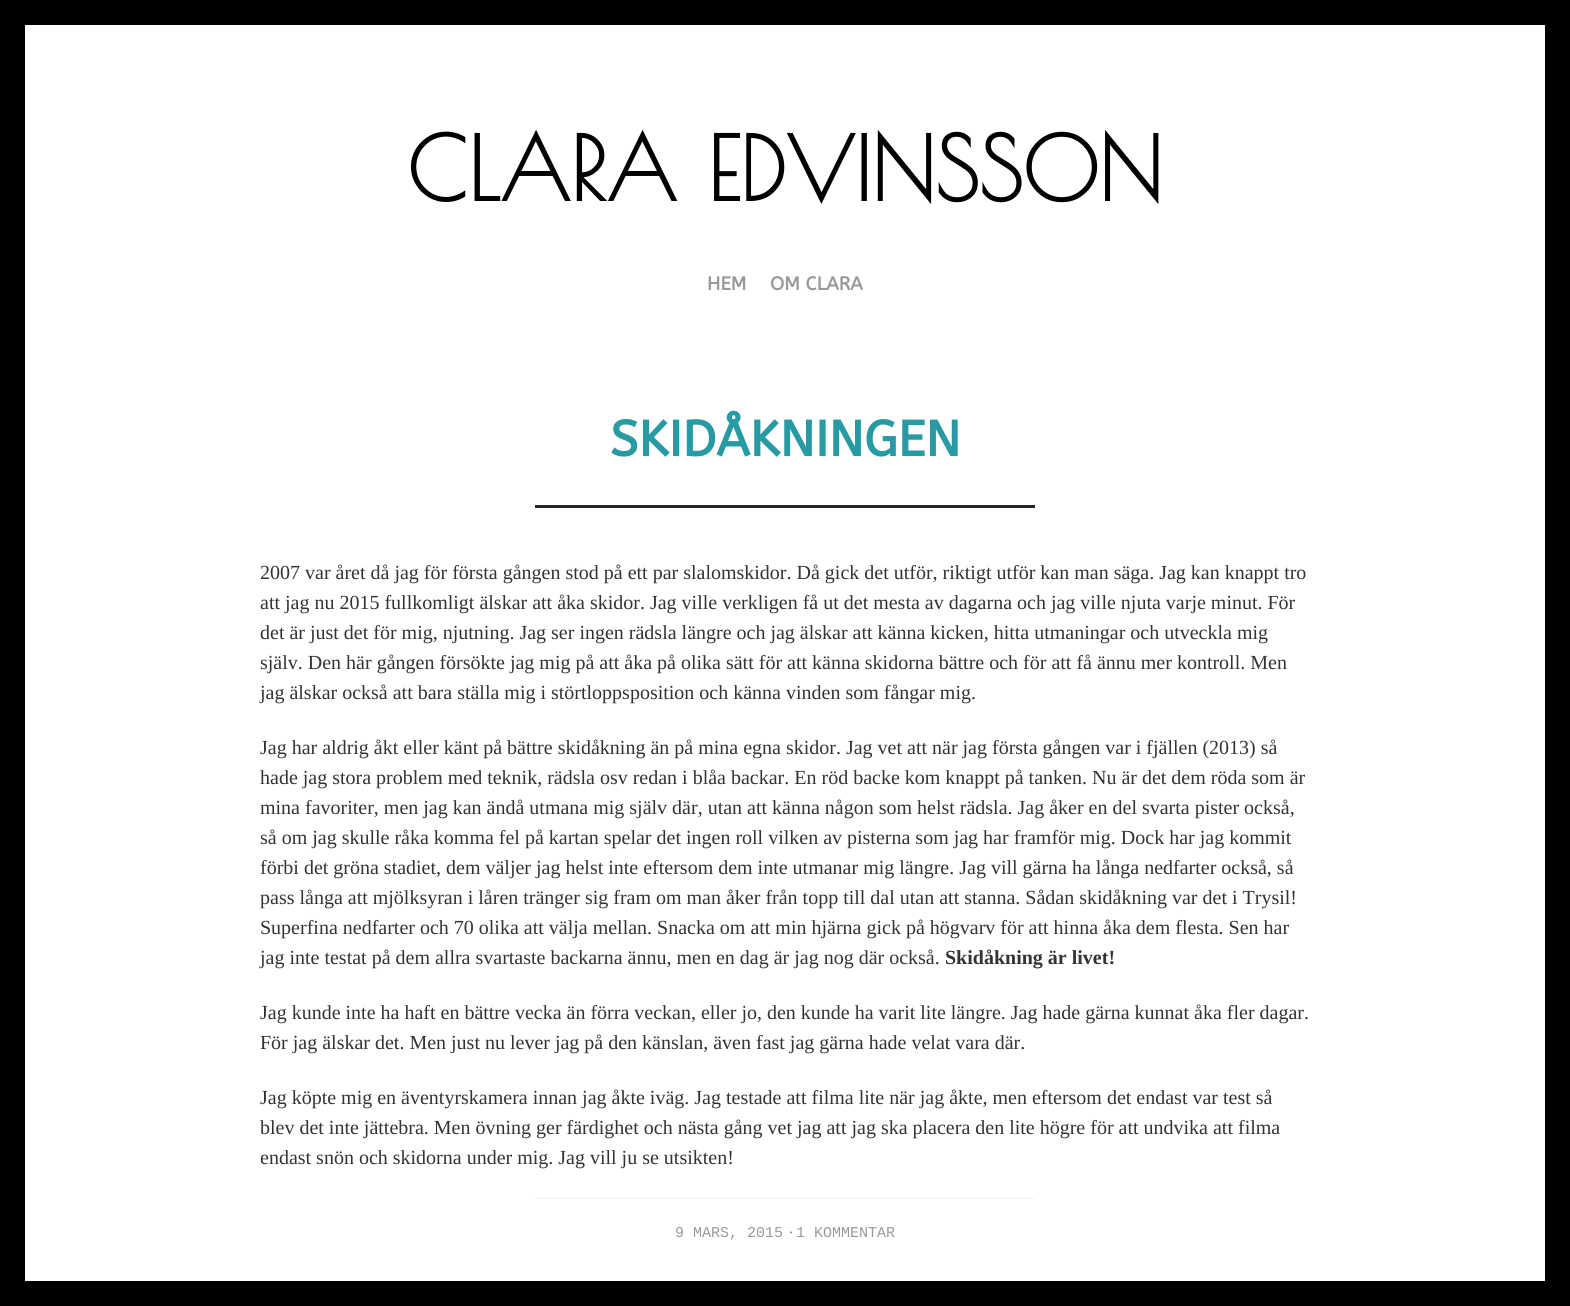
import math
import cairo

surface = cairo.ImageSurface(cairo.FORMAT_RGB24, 1570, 1306)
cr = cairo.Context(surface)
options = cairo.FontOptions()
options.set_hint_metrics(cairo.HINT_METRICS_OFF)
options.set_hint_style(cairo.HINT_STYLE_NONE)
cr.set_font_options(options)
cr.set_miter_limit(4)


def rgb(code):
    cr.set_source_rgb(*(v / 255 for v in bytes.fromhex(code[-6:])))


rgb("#000000")
cr.paint()
for x, y, w, h, color in [
    (25, 25, 1520, 1256, "#ffffff"),
    (535, 505, 500, 3, "#24282d"),
    (535, 1198, 500, 1, "#f1f2f3"),
]:
    rgb(color)
    cr.rectangle(x, y, w, h)
    cr.fill()
cr.select_font_face("Poiret One", cairo.FONT_SLANT_NORMAL, cairo.FONT_WEIGHT_BOLD)
cr.set_font_size(87.5)
rgb("#000000")
cr.move_to(407, 201)
cr.show_text("CLARA EDVINSSON")
cr.select_font_face("ABeeZee", cairo.FONT_SLANT_NORMAL, cairo.FONT_WEIGHT_BOLD)
cr.set_font_size(18.75)
rgb("#999999")
cr.move_to(707, 290)
cr.show_text("HEM")
cr.move_to(770, 290)
cr.show_text("OM CLARA")
cr.set_font_size(50)
rgb("#289aa4")
cr.move_to(610, 456)
cr.show_text("SKIDÅKNINGEN")
cr.select_font_face("Liberation Serif")
cr.set_font_size(20)
rgb("#333333")
for x, y, s in [
    (260, 579, "2007 var året då jag för första gången stod på ett par slalomskidor. Då gick det utför, riktigt utför kan man säga. Jag kan knappt tro"),
    (260, 609, "att jag nu 2015 fullkomligt älskar att åka skidor. Jag ville verkligen få ut det mesta av dagarna och jag ville njuta varje minut. För"),
    (260, 639, "det är just det för mig, njutning. Jag ser ingen rädsla längre och jag älskar att känna kicken, hitta utmaningar och utveckla mig"),
    (260, 669, "själv. Den här gången försökte jag mig på att åka på olika sätt för att känna skidorna bättre och för att få ännu mer kontroll. Men"),
    (260, 699, "jag älskar också att bara ställa mig i störtloppsposition och känna vinden som fångar mig."),
    (260, 754, "Jag har aldrig åkt eller känt på bättre skidåkning än på mina egna skidor. Jag vet att när jag första gången var i fjällen (2013) så"),
    (260, 784, "hade jag stora problem med teknik, rädsla osv redan i blåa backar. En röd backe kom knappt på tanken. Nu är det dem röda som är"),
    (260, 814, "mina favoriter, men jag kan ändå utmana mig själv där, utan att känna någon som helst rädsla. Jag åker en del svarta pister också,"),
    (260, 844, "så om jag skulle råka komma fel på kartan spelar det ingen roll vilken av pisterna som jag har framför mig. Dock har jag kommit"),
    (260, 874, "förbi det gröna stadiet, dem väljer jag helst inte eftersom dem inte utmanar mig längre. Jag vill gärna ha långa nedfarter också, så"),
    (260, 904, "pass långa att mjölksyran i låren tränger sig fram om man åker från topp till dal utan att stanna. Sådan skidåkning var det i Trysil!"),
    (260, 934, "Superfina nedfarter och 70 olika att välja mellan. Snacka om att min hjärna gick på högvarv för att hinna åka dem flesta. Sen har"),
    (260, 964, "jag inte testat på dem allra svartaste backarna ännu, men en dag är jag nog där också."),
]:
    cr.move_to(x, y)
    cr.show_text(s)
cr.select_font_face("Liberation Serif", cairo.FONT_SLANT_NORMAL, cairo.FONT_WEIGHT_BOLD)
cr.move_to(945, 964)
cr.show_text("Skidåkning är livet!")
cr.select_font_face("Liberation Serif")
for x, y, s in [
    (260, 1019, "Jag kunde inte ha haft en bättre vecka än förra veckan, eller jo, den kunde ha varit lite längre. Jag hade gärna kunnat åka fler dagar."),
    (260, 1049, "För jag älskar det. Men just nu lever jag på den känslan, även fast jag gärna hade velat vara där."),
    (260, 1104, "Jag köpte mig en äventyrskamera innan jag åkte iväg. Jag testade att filma lite när jag åkte, men eftersom det endast var test så"),
    (260, 1134, "blev det inte jättebra. Men övning ger färdighet och nästa gång vet jag att jag ska placera den lite högre för att undvika att filma"),
    (260, 1164, "endast snön och skidorna under mig. Jag vill ju se utsikten!"),
]:
    cr.move_to(x, y)
    cr.show_text(s)
cr.select_font_face("Liberation Mono")
cr.set_font_size(15)
rgb("#999999")
cr.move_to(675, 1237)
cr.show_text("9 MARS, 2015")
cr.select_font_face("PT Serif", cairo.FONT_SLANT_ITALIC)
rgb("#7f8d8c")
cr.move_to(789, 1237)
cr.show_text("·")
cr.select_font_face("Liberation Mono")
rgb("#999999")
cr.move_to(796, 1237)
cr.show_text("1 KOMMENTAR")
surface.write_to_png("page.png")
